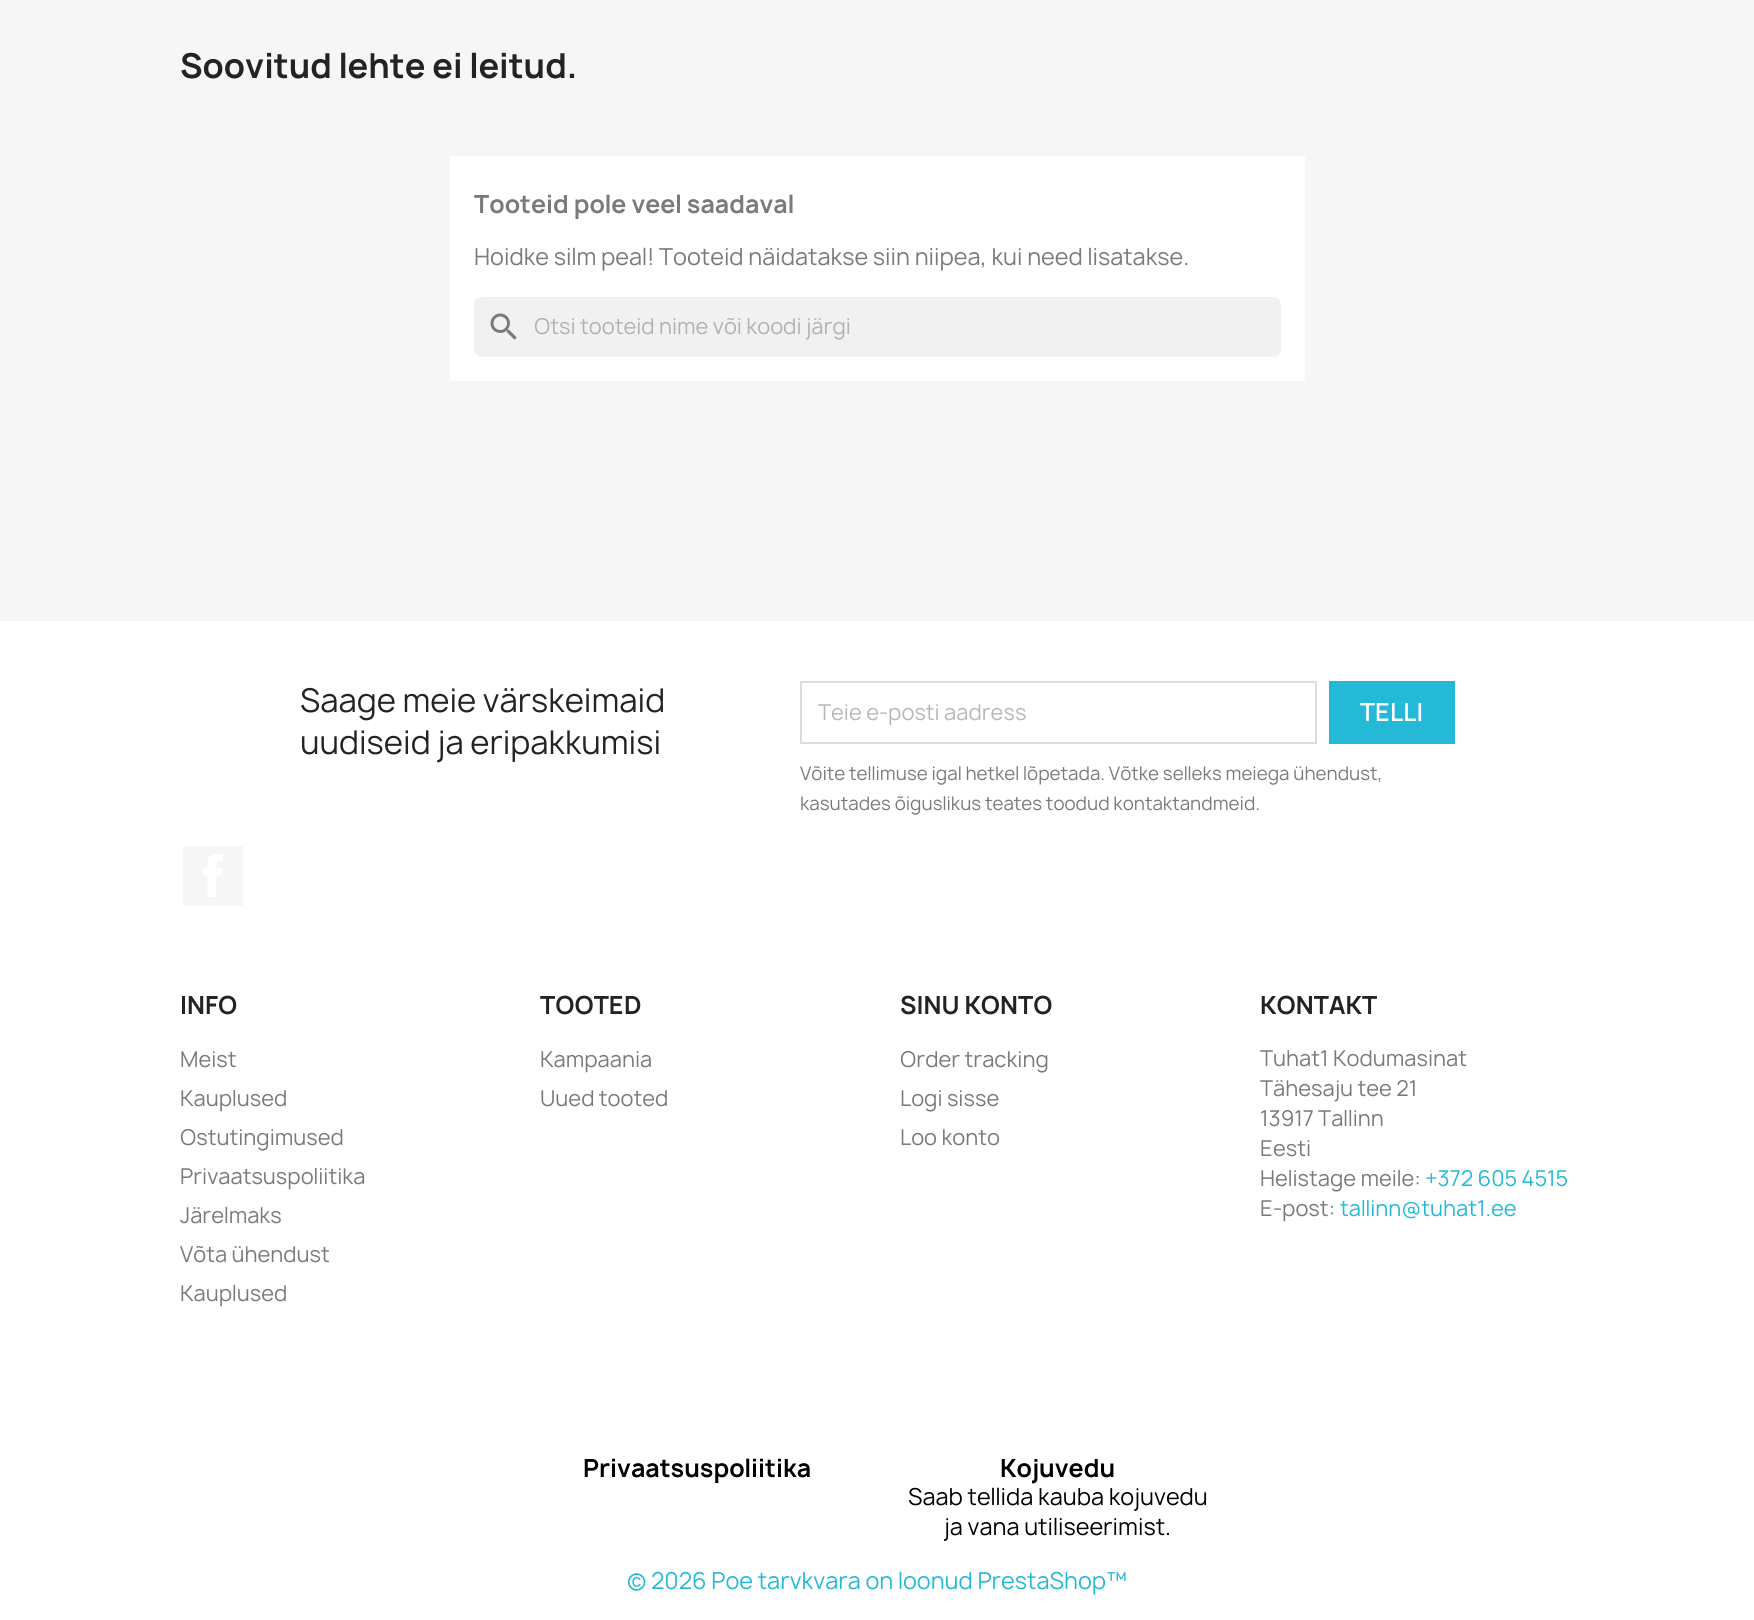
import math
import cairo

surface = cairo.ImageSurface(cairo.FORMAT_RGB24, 1754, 1620)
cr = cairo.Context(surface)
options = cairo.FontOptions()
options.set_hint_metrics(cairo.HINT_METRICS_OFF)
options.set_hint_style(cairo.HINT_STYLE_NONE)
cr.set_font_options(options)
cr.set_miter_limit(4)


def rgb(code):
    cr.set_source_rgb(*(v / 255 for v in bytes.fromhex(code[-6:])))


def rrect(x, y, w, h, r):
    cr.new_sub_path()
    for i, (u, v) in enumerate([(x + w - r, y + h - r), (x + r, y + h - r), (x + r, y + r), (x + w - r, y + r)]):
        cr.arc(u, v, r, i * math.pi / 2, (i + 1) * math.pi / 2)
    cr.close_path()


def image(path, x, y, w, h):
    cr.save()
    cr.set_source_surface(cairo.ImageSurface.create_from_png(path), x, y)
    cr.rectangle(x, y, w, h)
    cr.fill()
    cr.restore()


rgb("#ffffff")
cr.paint()
rgb("#f6f6f6")
cr.rectangle(0, 0, 1754, 621)
cr.fill()
rgb("#ffffff")
cr.rectangle(450, 156, 855, 225)
cr.fill()
rgb("#f1f1f1")
rrect(474, 297, 807, 60, 8)
cr.fill()
image("img/1.png", 490, 313, 27, 27)
cr.rectangle(801, 682, 515, 61)
rgb("#dddddd")
cr.stroke()
rgb("#24b9d7")
cr.rectangle(1329, 681, 126, 63)
cr.fill()
rgb("#f6f6f6")
cr.rectangle(183, 846, 60, 60)
cr.fill()
image("img/2.png", 203, 854, 20, 43)
cr.select_font_face("Manrope", cairo.FONT_SLANT_NORMAL, cairo.FONT_WEIGHT_BOLD)
cr.set_font_size(33)
rgb("#232323")
cr.move_to(180, 78)
cr.show_text("Soovitud lehte ei leitud.")
cr.set_font_size(24)
rgb("#7a7a7a")
cr.move_to(474, 213)
cr.show_text("Tooteid pole veel saadaval")
cr.select_font_face("Manrope")
cr.set_font_size(22.5)
cr.move_to(474, 265)
cr.show_text("Hoidke silm peal! Tooteid näidatakse siin niipea, kui need lisatakse.")
cr.set_font_size(21)
rgb("#b1b1b1")
cr.move_to(534, 334)
cr.show_text("Otsi tooteid nime või koodi järgi")
cr.set_font_size(31.5)
rgb("#232323")
cr.move_to(300, 712)
cr.show_text("Saage meie värskeimaid")
cr.move_to(300, 754)
cr.show_text("uudiseid ja eripakkumisi")
cr.set_font_size(21)
rgb("#b7b7b7")
cr.move_to(818, 720)
cr.show_text("Teie e-posti aadress")
cr.select_font_face("Manrope SemiBold")
cr.set_font_size(24)
rgb("#ffffff")
cr.move_to(1360, 721)
cr.show_text("TELLI")
cr.select_font_face("Manrope")
cr.set_font_size(18)
rgb("#7a7a7a")
cr.move_to(800, 780)
cr.show_text("Võite tellimuse igal hetkel lõpetada. Võtke selleks meiega ühendust,")
cr.move_to(800, 810)
cr.show_text("kasutades õiguslikus teates toodud kontaktandmeid.")
cr.select_font_face("Manrope", cairo.FONT_SLANT_NORMAL, cairo.FONT_WEIGHT_BOLD)
cr.set_font_size(24)
rgb("#232323")
cr.move_to(180, 1014)
cr.show_text("INFO")
cr.select_font_face("Manrope")
cr.set_font_size(21)
rgb("#7a7a7a")
for x, y, s in [
    (180, 1067, "Meist"),
    (180, 1106, "Kauplused"),
    (180, 1145, "Ostutingimused"),
    (180, 1184, "Privaatsuspoliitika"),
    (180, 1223, "Järelmaks"),
    (180, 1262, "Võta ühendust"),
    (180, 1301, "Kauplused"),
]:
    cr.move_to(x, y)
    cr.show_text(s)
cr.select_font_face("Manrope", cairo.FONT_SLANT_NORMAL, cairo.FONT_WEIGHT_BOLD)
cr.set_font_size(24)
rgb("#232323")
cr.move_to(540, 1014)
cr.show_text("TOOTED")
cr.select_font_face("Manrope")
cr.set_font_size(21)
rgb("#7a7a7a")
cr.move_to(540, 1067)
cr.show_text("Kampaania")
cr.move_to(540, 1106)
cr.show_text("Uued tooted")
cr.select_font_face("Manrope", cairo.FONT_SLANT_NORMAL, cairo.FONT_WEIGHT_BOLD)
cr.set_font_size(24)
rgb("#232323")
cr.move_to(900, 1014)
cr.show_text("SINU KONTO")
cr.select_font_face("Manrope")
cr.set_font_size(21)
rgb("#7a7a7a")
for x, y, s in [
    (900, 1067, "Order tracking"),
    (900, 1106, "Logi sisse"),
    (900, 1145, "Loo konto"),
]:
    cr.move_to(x, y)
    cr.show_text(s)
cr.select_font_face("Manrope", cairo.FONT_SLANT_NORMAL, cairo.FONT_WEIGHT_BOLD)
cr.set_font_size(24)
rgb("#232323")
cr.move_to(1260, 1014)
cr.show_text("KONTAKT")
cr.select_font_face("Manrope")
cr.set_font_size(21)
rgb("#7a7a7a")
for x, y, s in [
    (1260, 1066, "Tuhat1 Kodumasinat"),
    (1260, 1096, "Tähesaju tee 21"),
    (1260, 1126, "13917 Tallinn"),
    (1260, 1156, "Eesti"),
    (1260, 1186, "Helistage meile:"),
]:
    cr.move_to(x, y)
    cr.show_text(s)
rgb("#24b9d7")
cr.move_to(1425, 1186)
cr.show_text("+372 605 4515")
rgb("#7a7a7a")
cr.move_to(1260, 1216)
cr.show_text("E-post:")
rgb("#24b9d7")
cr.move_to(1340, 1216)
cr.show_text("tallinn@tuhat1.ee")
cr.select_font_face("Manrope", cairo.FONT_SLANT_NORMAL, cairo.FONT_WEIGHT_BOLD)
cr.set_font_size(24)
rgb("#000000")
cr.move_to(583, 1477)
cr.show_text("Privaatsuspoliitika")
cr.move_to(1000, 1477)
cr.show_text("Kojuvedu")
cr.select_font_face("Manrope")
cr.set_font_size(22.5)
cr.move_to(908, 1505)
cr.show_text("Saab tellida kauba kojuvedu")
cr.move_to(944, 1535)
cr.show_text("ja vana utiliseerimist.")
rgb("#24b9d7")
cr.move_to(627, 1589)
cr.show_text("© 2026 Poe tarvkvara on loonud PrestaShop™")
surface.write_to_png("page.png")
